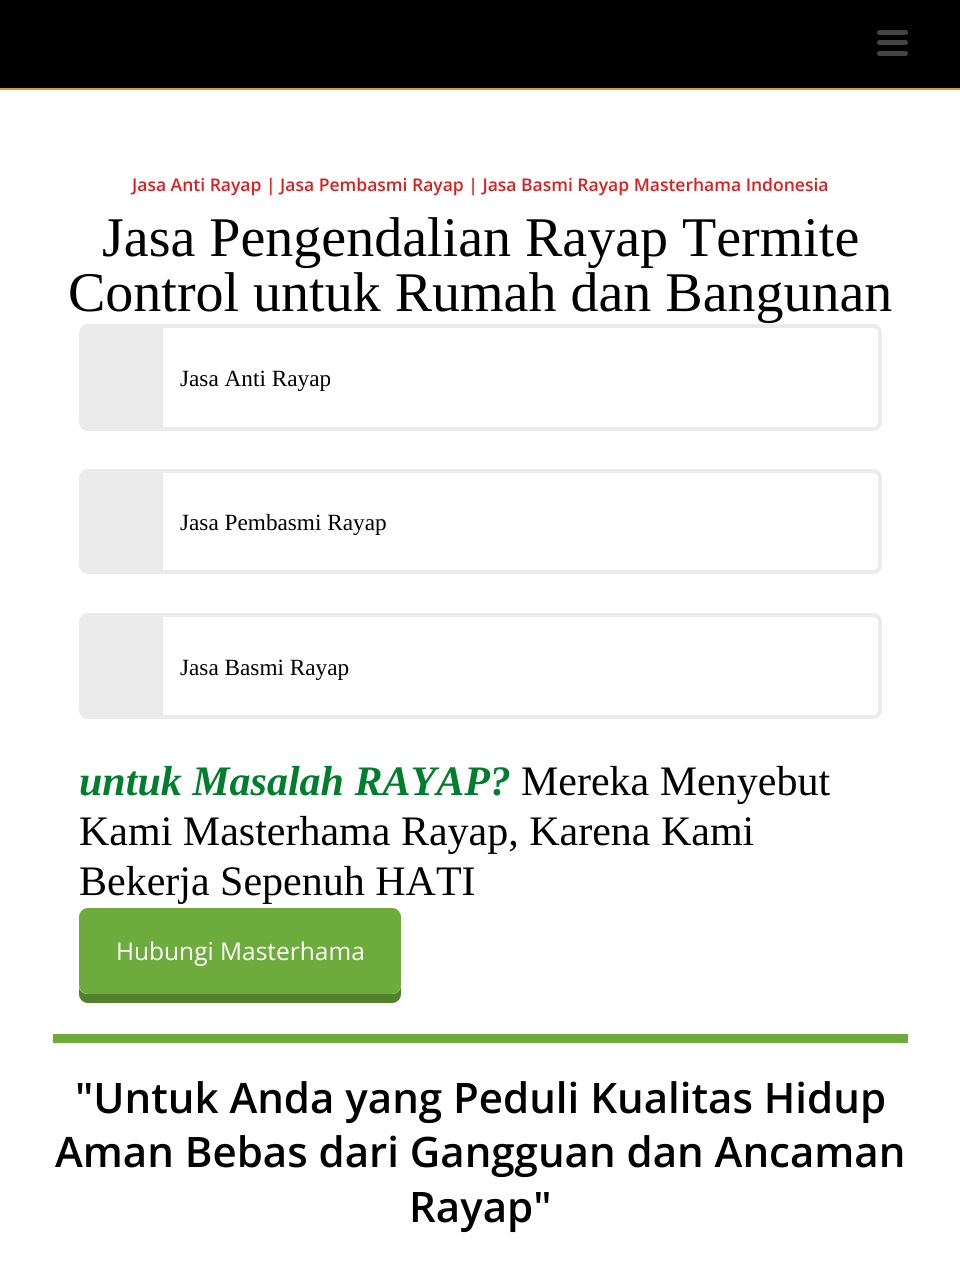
import math
import cairo

surface = cairo.ImageSurface(cairo.FORMAT_RGB24, 960, 1262)
cr = cairo.Context(surface)
options = cairo.FontOptions()
options.set_hint_metrics(cairo.HINT_METRICS_OFF)
options.set_hint_style(cairo.HINT_STYLE_NONE)
cr.set_font_options(options)
cr.set_miter_limit(4)


def rgb(code):
    cr.set_source_rgb(*(v / 255 for v in bytes.fromhex(code[-6:])))


def rrect(x, y, w, h, r):
    cr.new_sub_path()
    for i, (u, v) in enumerate([(x + w - r, y + h - r), (x + r, y + h - r), (x + r, y + r), (x + w - r, y + r)]):
        cr.arc(u, v, r, i * math.pi / 2, (i + 1) * math.pi / 2)
    cr.close_path()


rgb("#ffffff")
cr.paint()
rgb("#000000")
cr.rectangle(0, 0, 960, 88)
cr.fill()
rgb("#dd9933")
cr.rectangle(0, 88, 960, 2)
cr.fill()
rgb("#444444")
rrect(877, 30, 31, 5, 2.5)
cr.fill()
rrect(877, 40, 31, 5, 2.5)
cr.fill()
rrect(877, 51, 31, 5, 2.5)
cr.fill()
rrect(81, 326, 799, 103, 7)
rgb("#ebebeb")
cr.set_line_width(4)
cr.stroke()
cr.new_path()
cr.move_to(87, 327)
cr.line_to(163, 327)
cr.line_to(163, 427)
cr.line_to(87, 427)
cr.curve_to(84, 427, 82, 425, 82, 422)
cr.line_to(82, 332)
cr.curve_to(82, 329, 84, 327, 87, 327)
cr.close_path()
cr.fill()
rrect(81, 471, 799, 101, 7)
cr.stroke()
cr.new_path()
cr.move_to(87, 473)
cr.line_to(163, 473)
cr.line_to(163, 571)
cr.line_to(87, 571)
cr.curve_to(84, 571, 82, 569, 82, 566)
cr.line_to(82, 478)
cr.curve_to(82, 475, 84, 473, 87, 473)
cr.close_path()
cr.fill()
rrect(81, 615, 799, 102, 7)
cr.stroke()
cr.new_path()
cr.move_to(87, 616)
cr.line_to(163, 616)
cr.line_to(163, 716)
cr.line_to(87, 716)
cr.curve_to(84, 716, 82, 714, 82, 711)
cr.line_to(82, 621)
cr.curve_to(82, 618, 84, 616, 87, 616)
cr.close_path()
cr.fill()
rgb("#53812d")
cr.new_path()
cr.move_to(79, 987)
cr.line_to(79, 994)
cr.curve_to(79, 999, 83, 1003, 88, 1003)
cr.line_to(392, 1003)
cr.curve_to(397, 1003, 401, 999, 401, 994)
cr.line_to(401, 924)
cr.line_to(401, 985)
cr.curve_to(401, 990, 397, 994, 392, 994)
cr.line_to(88, 994)
cr.curve_to(83, 994, 80, 991, 79, 987)
cr.close_path()
cr.fill()
rgb("#6dab3c")
rrect(79, 908, 322, 86, 9)
cr.fill()
cr.rectangle(53, 1034, 855, 9)
cr.fill()
cr.select_font_face("Open Sans SemiBold")
cr.set_font_size(17.5)
rgb("#dd1f1f")
cr.move_to(132, 191)
cr.show_text("Jasa Anti Rayap | Jasa Pembasmi Rayap | Jasa Basmi Rayap Masterhama Indonesia")
cr.select_font_face("Liberation Serif")
cr.set_font_size(56)
rgb("#000000")
cr.move_to(102, 256)
cr.show_text("Jasa Pengendalian Rayap Termite")
cr.move_to(68, 311)
cr.show_text("Control untuk Rumah dan Bangunan")
cr.set_font_size(23.25)
for x, y, s in [
    (180, 386, "Jasa Anti Rayap"),
    (180, 530, "Jasa Pembasmi Rayap"),
    (180, 675, "Jasa Basmi Rayap"),
]:
    cr.move_to(x, y)
    cr.show_text(s)
cr.select_font_face("Liberation Serif", cairo.FONT_SLANT_ITALIC, cairo.FONT_WEIGHT_BOLD)
cr.set_font_size(42)
rgb("#007e2d")
cr.move_to(79, 795)
cr.show_text("untuk Masalah RAYAP?")
cr.select_font_face("Liberation Serif")
rgb("#000000")
for x, y, s in [
    (521, 795, "Mereka Menyebut"),
    (79, 845, "Kami Masterhama Rayap, Karena Kami"),
    (79, 895, "Bekerja Sepenuh HATI"),
]:
    cr.move_to(x, y)
    cr.show_text(s)
cr.select_font_face("Open Sans")
cr.set_font_size(24.5)
rgb("#ffffff")
cr.move_to(116, 960)
cr.show_text("Hubungi Masterhama")
cr.select_font_face("Open Sans SemiBold")
cr.set_font_size(42)
rgb("#000000")
for x, y, s in [
    (75, 1113, "\"Untuk Anda yang Peduli Kualitas Hidup"),
    (55, 1167, "Aman Bebas dari Gangguan dan Ancaman"),
    (409, 1222, "Rayap\""),
]:
    cr.move_to(x, y)
    cr.show_text(s)
surface.write_to_png("page.png")
